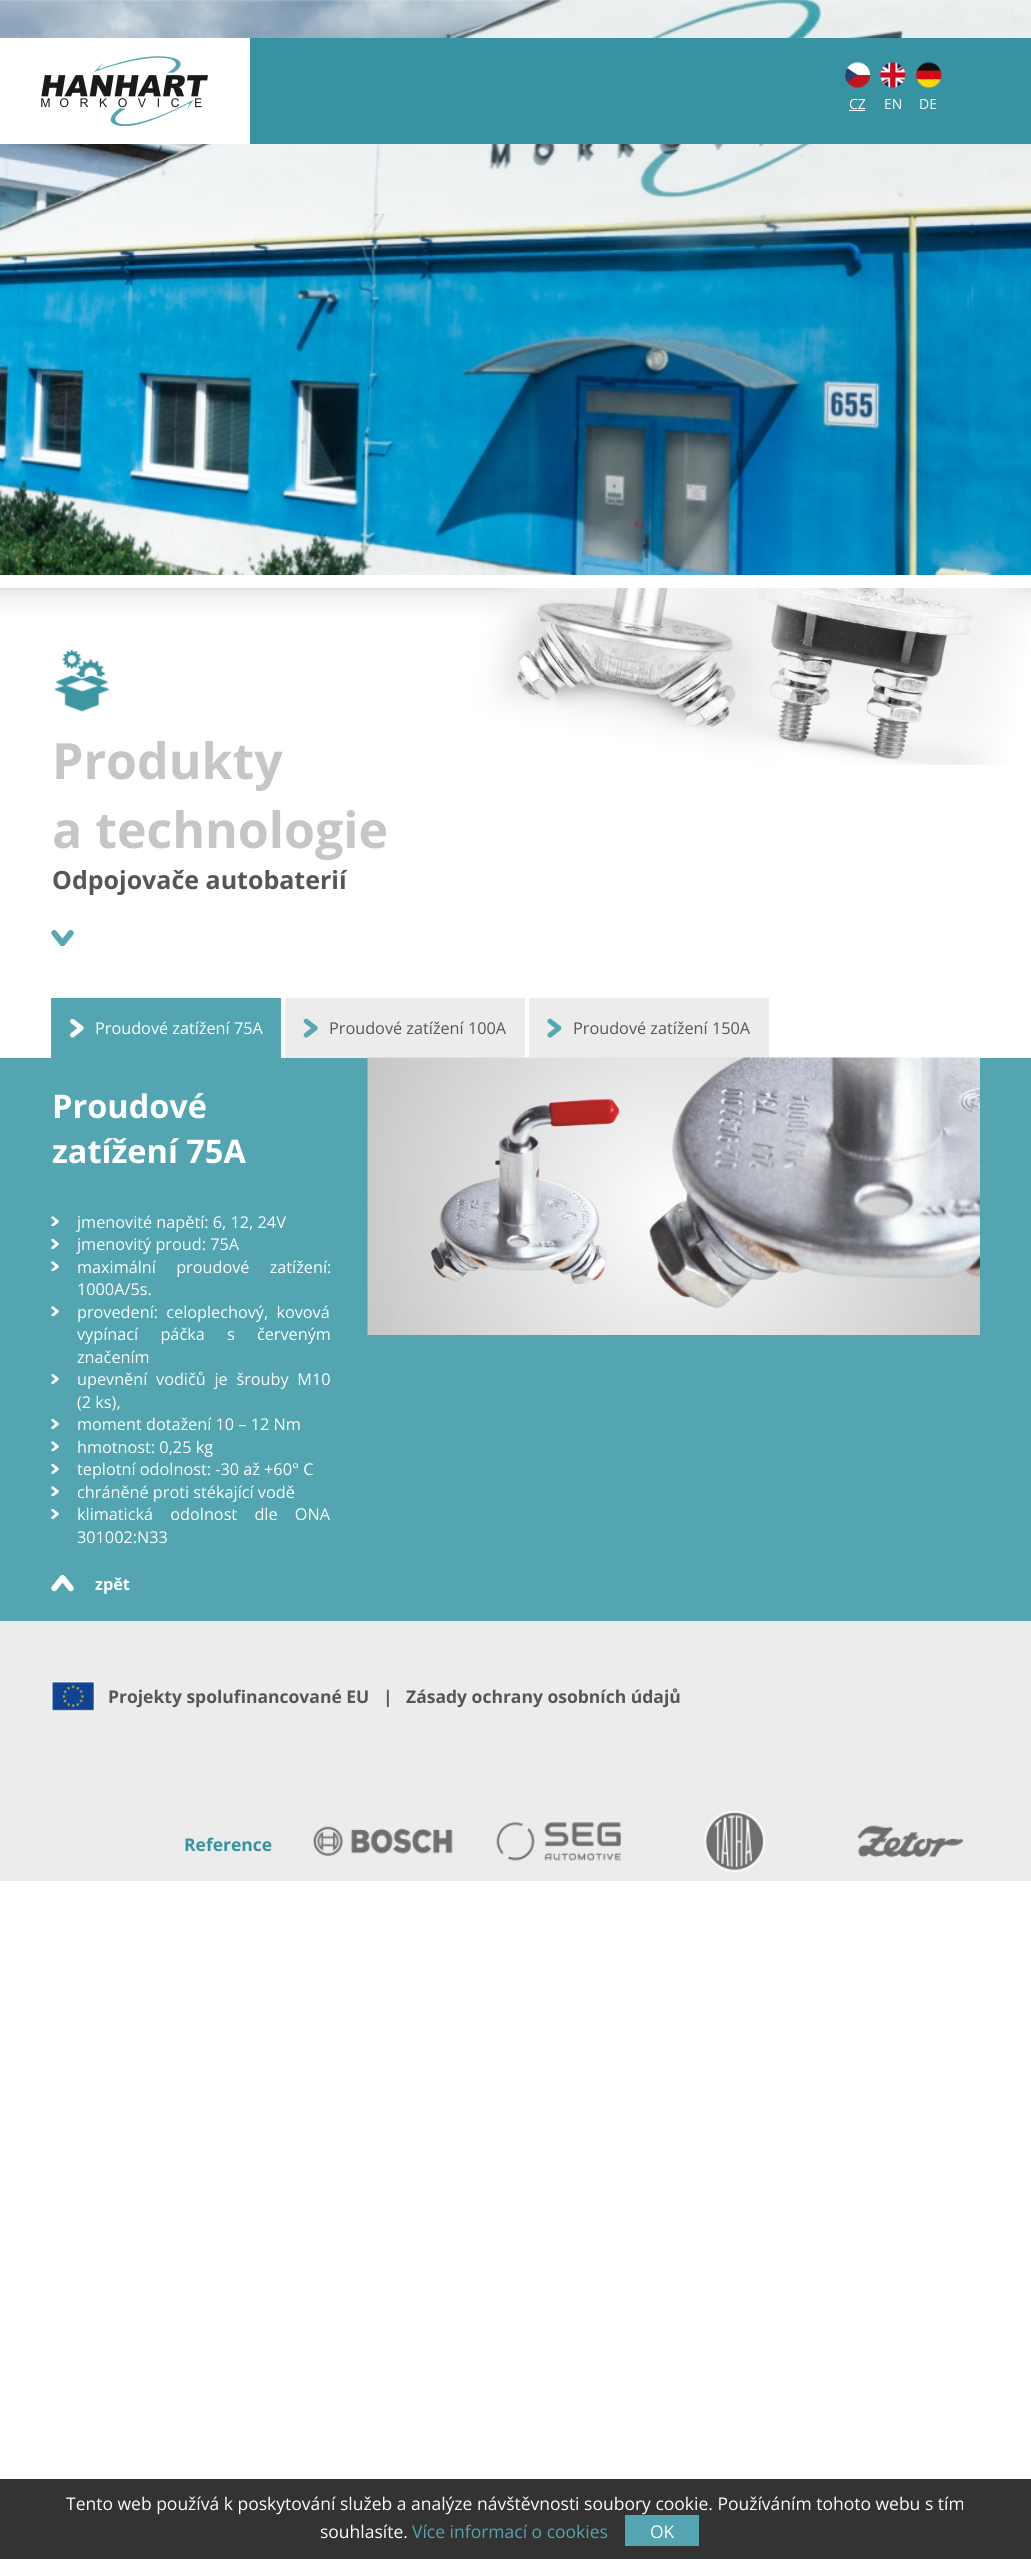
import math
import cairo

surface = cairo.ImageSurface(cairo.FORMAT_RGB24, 1031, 2559)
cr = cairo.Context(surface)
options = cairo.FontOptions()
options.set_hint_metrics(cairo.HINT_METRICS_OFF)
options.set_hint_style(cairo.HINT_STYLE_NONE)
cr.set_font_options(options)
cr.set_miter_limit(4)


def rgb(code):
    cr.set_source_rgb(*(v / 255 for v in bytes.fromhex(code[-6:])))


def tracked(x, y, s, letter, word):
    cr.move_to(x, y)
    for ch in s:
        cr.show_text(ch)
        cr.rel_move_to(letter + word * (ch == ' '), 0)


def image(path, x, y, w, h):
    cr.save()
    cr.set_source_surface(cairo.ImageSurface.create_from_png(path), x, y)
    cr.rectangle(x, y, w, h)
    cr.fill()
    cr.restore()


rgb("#ffffff")
cr.paint()
image("img/1.png", 0, 0, 1031, 575)
rgb("#ffffff")
cr.rectangle(0, 38, 250, 106)
cr.fill()
image("img/2.png", 41, 56, 167, 70)
rgb("#3793a1")
cr.rectangle(250, 38, 781, 106)
cr.fill()
image("img/3.png", 845, 62, 25, 26)
rgb("#ffffff")
cr.rectangle(849, 110, 16, 1)
cr.fill()
image("img/4.png", 880, 62, 25, 26)
image("img/5.png", 916, 62, 26, 26)
image("img/6.png", 0, 588, 1031, 177)
image("img/7.png", 54, 650, 56, 62)
image("img/8.png", 51, 930, 23, 16)
rgb("#52a5b1")
cr.rectangle(51, 998, 230, 60)
cr.fill()
image("img/9.png", 70, 1019, 14, 19)
rgb("#ececec")
cr.rectangle(285, 998, 240, 60)
cr.fill()
image("img/10.png", 303, 1018, 15, 20)
cr.rectangle(529, 998, 240, 60)
cr.fill()
image("img/11.png", 547, 1018, 15, 20)
rgb("#52a5b1")
cr.rectangle(0, 1058, 1031, 563)
cr.fill()
image("img/12.png", 51, 1216, 8, 10)
image("img/13.png", 51, 1239, 8, 10)
image("img/12.png", 51, 1261, 8, 10)
image("img/12.png", 51, 1306, 8, 10)
image("img/13.png", 51, 1374, 8, 10)
image("img/13.png", 51, 1419, 8, 10)
image("img/12.png", 51, 1441, 8, 10)
image("img/13.png", 51, 1464, 8, 10)
image("img/12.png", 51, 1486, 8, 10)
image("img/13.png", 51, 1509, 8, 10)
image("img/14.png", 51, 1575, 23, 17)
image("img/15.png", 367, 1057, 613, 278)
rgb("#ececec")
cr.rectangle(0, 1621, 1031, 260)
cr.fill()
image("img/16.png", 51, 1681, 44, 31)
image("img/17.png", 313, 1826, 140, 30)
image("img/18.png", 496, 1822, 125, 39)
image("img/19.png", 704, 1811, 62, 61)
image("img/20.png", 857, 1825, 107, 33)
rgb("#333333")
cr.rectangle(0, 2479, 1031, 80)
cr.fill()
rgb("#52a5b1")
cr.rectangle(625, 2515, 74, 31)
cr.fill()
cr.select_font_face("Open Sans")
cr.set_font_size(14)
rgb("#ffffff")
for x, y, s in [
    (849, 109, "CZ"),
    (884, 109, "EN"),
    (919, 109, "DE"),
]:
    cr.move_to(x, y)
    cr.show_text(s)
cr.select_font_face("Open Sans", cairo.FONT_SLANT_NORMAL, cairo.FONT_WEIGHT_BOLD)
cr.set_font_size(50)
rgb("#c6c6c6")
cr.move_to(52, 779)
cr.show_text("Produkty")
cr.move_to(52, 848)
cr.show_text("a technologie")
cr.set_font_size(25)
rgb("#565656")
cr.move_to(52, 889)
cr.show_text("Odpojovače autobaterií")
cr.select_font_face("Open Sans")
cr.set_font_size(16.25)
rgb("#ffffff")
cr.move_to(95, 1034)
cr.show_text("Proudové zatížení 75A")
rgb("#565656")
cr.move_to(329, 1034)
cr.show_text("Proudové zatížení 100A")
cr.move_to(573, 1034)
cr.show_text("Proudové zatížení 150A")
cr.select_font_face("Open Sans", cairo.FONT_SLANT_NORMAL, cairo.FONT_WEIGHT_BOLD)
cr.set_font_size(32.5)
rgb("#ffffff")
cr.move_to(52, 1118)
cr.show_text("Proudové")
cr.move_to(52, 1163)
cr.show_text("zatížení 75A")
cr.select_font_face("Open Sans")
cr.set_font_size(16.25)
cr.move_to(77, 1228)
cr.show_text("jmenovité napětí: 6, 12, 24V")
cr.move_to(77, 1250)
cr.show_text("jmenovitý proud: 75A")
tracked(77, 1273, "maximální proudové zatížení:", 0, 16)
cr.move_to(77, 1295)
cr.show_text("1000A/5s.")
tracked(77, 1318, "provedení: celoplechový, kovová", 0, 4)
tracked(77, 1340, "vypínací páčka s červeným", 0, 18)
cr.move_to(77, 1363)
cr.show_text("značením")
tracked(77, 1385, "upevnění vodičů je šrouby M10", 0, 4.5)
for x, y, s in [
    (77, 1408, "(2 ks),"),
    (77, 1430, "moment dotažení 10 – 12 Nm"),
    (77, 1453, "hmotnost: 0,25 kg"),
    (77, 1475, "teplotní odolnost: -30 až +60° C"),
    (77, 1498, "chráněné proti stékající vodě"),
]:
    cr.move_to(x, y)
    cr.show_text(s)
tracked(77, 1520, "klimatická odolnost dle ONA", 0, 13)
cr.move_to(77, 1543)
cr.show_text("301002:N33")
cr.select_font_face("Open Sans", cairo.FONT_SLANT_NORMAL, cairo.FONT_WEIGHT_BOLD)
cr.move_to(95, 1590)
cr.show_text("zpět")
cr.set_font_size(17.5)
rgb("#565656")
for x, y, s in [
    (108, 1703, "Projekty spolufinancované EU"),
    (383, 1703, "|"),
    (406, 1703, "Zásady ochrany osobních údajů"),
]:
    cr.move_to(x, y)
    cr.show_text(s)
rgb("#3793a1")
cr.move_to(184, 1851)
cr.show_text("Reference")
cr.select_font_face("Open Sans")
rgb("#ffffff")
cr.move_to(66, 2510)
cr.show_text("Tento web používá k poskytování služeb a analýze návštěvnosti soubory cookie. Používáním tohoto webu s tím")
cr.move_to(320, 2538)
cr.show_text("souhlasíte.")
rgb("#52a5b1")
cr.move_to(412, 2538)
cr.show_text("Více informací o cookies")
rgb("#ffffff")
cr.move_to(650, 2538)
cr.show_text("OK")
surface.write_to_png("page.png")
